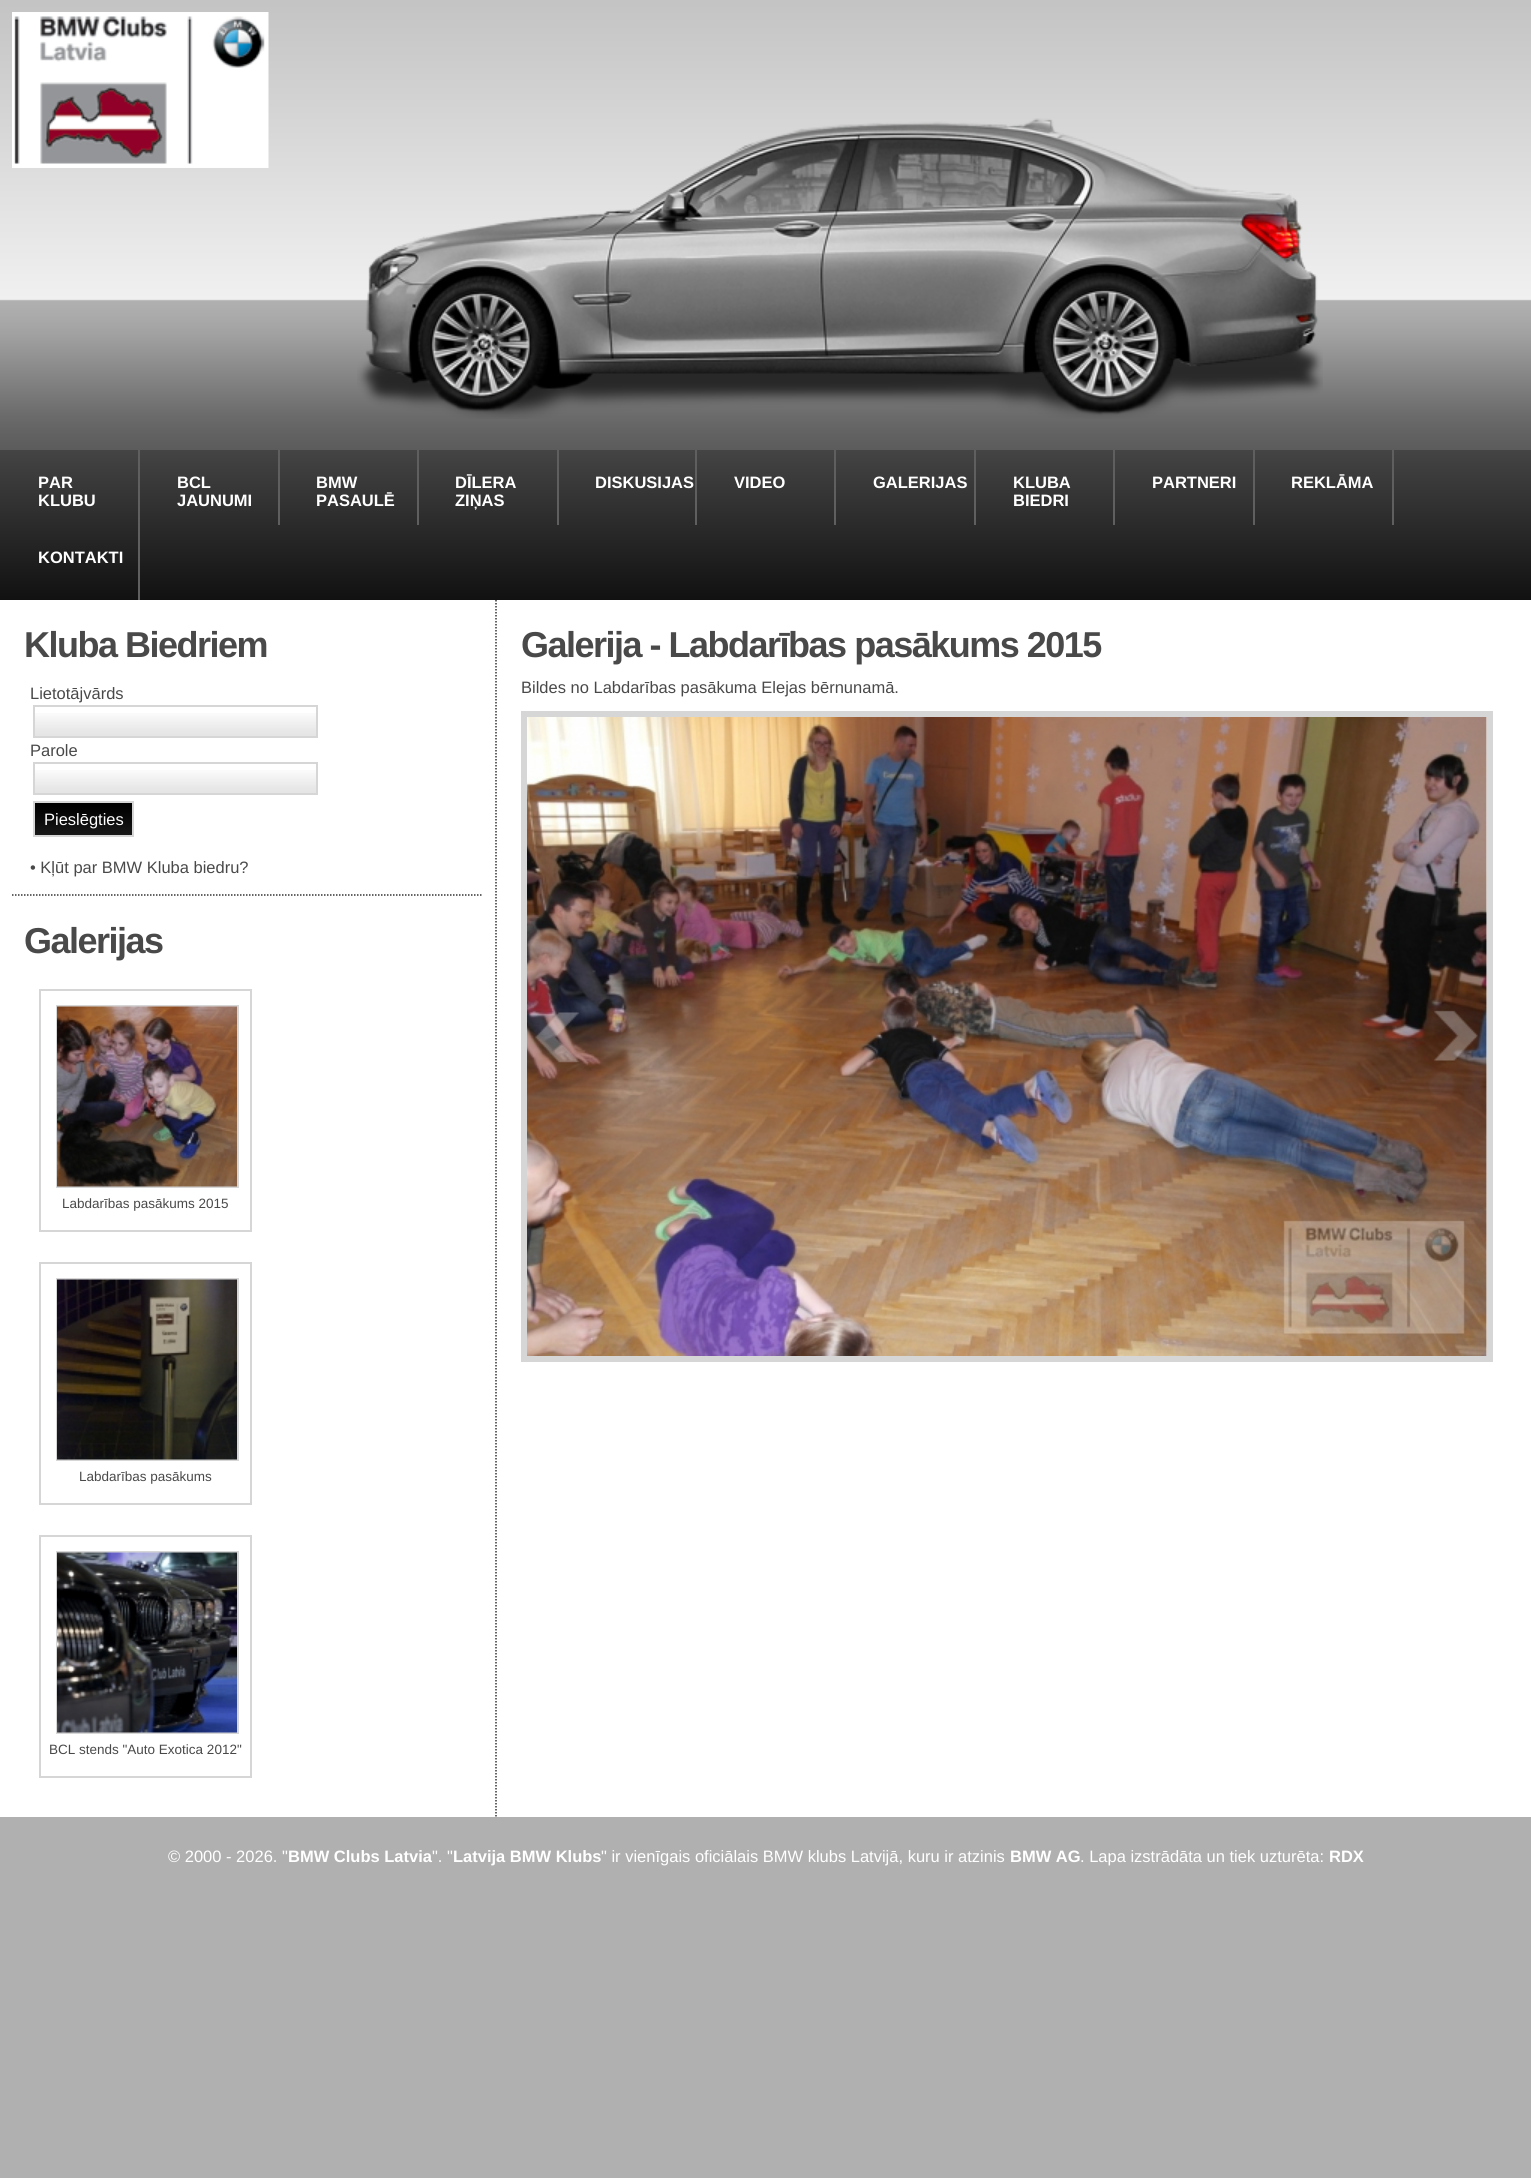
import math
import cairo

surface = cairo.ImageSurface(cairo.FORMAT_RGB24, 1531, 2178)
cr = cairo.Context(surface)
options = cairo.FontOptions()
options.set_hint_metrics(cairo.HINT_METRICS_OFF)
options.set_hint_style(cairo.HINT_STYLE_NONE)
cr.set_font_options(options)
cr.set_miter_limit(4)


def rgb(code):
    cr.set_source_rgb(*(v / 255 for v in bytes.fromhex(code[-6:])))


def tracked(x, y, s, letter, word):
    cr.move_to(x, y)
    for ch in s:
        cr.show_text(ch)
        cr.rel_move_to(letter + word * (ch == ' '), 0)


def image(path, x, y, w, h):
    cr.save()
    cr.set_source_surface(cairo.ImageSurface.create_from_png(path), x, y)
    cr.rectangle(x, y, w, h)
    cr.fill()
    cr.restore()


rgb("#b0b0b0")
cr.paint()
image("img/1.png", 0, 0, 1531, 450)
image("img/2.png", 12, 12, 257, 156)
image("img/3.png", 357, 118, 966, 301)
gradient = cairo.LinearGradient(766, 450, 766, 600)
gradient.add_color_stop_rgba(0, 0.267, 0.267, 0.267, 1)
gradient.add_color_stop_rgba(1, 0.067, 0.067, 0.067, 1)
cr.set_source(gradient)
cr.rectangle(0, 450, 1531, 150)
cr.fill()
for x, y, w, h, color in [
    (138, 450, 2, 150, "#5f5f5f"),
    (278, 450, 2, 75, "#5f5f5f"),
    (417, 450, 2, 75, "#5f5f5f"),
    (557, 450, 2, 75, "#5f5f5f"),
    (695, 450, 2, 75, "#5f5f5f"),
    (834, 450, 2, 75, "#5f5f5f"),
    (974, 450, 2, 75, "#5f5f5f"),
    (1113, 450, 2, 75, "#5f5f5f"),
    (1253, 450, 2, 75, "#5f5f5f"),
    (1392, 450, 2, 75, "#5f5f5f"),
    (0, 600, 1531, 1217, "#ffffff"),
]:
    rgb(color)
    cr.rectangle(x, y, w, h)
    cr.fill()
cr.new_path()
cr.move_to(496, 600)
cr.line_to(496, 1816.5)
rgb("#333333")
cr.set_line_width(1.5)
cr.set_dash([1.5, 1.5])
cr.stroke()
cr.new_path()
cr.move_to(12, 895)
cr.line_to(483, 895)
cr.stroke()
image("img/4.png", 35, 713, 281, 23)
cr.rectangle(34, 706, 283, 31)
rgb("#d6d6d6")
cr.set_line_width(2)
cr.set_dash([])
cr.stroke()
image("img/4.png", 35, 770, 281, 23)
cr.rectangle(34, 763, 283, 31)
cr.stroke()
image("img/5.png", 35, 803, 97, 32)
cr.rectangle(34, 802, 99, 34)
cr.stroke()
cr.rectangle(40, 990, 211, 241)
cr.stroke()
cr.rectangle(57, 1006, 181, 181)
cr.stroke()
image("img/6.png", 57, 1006, 180, 181)
cr.rectangle(40, 1263, 211, 241)
cr.stroke()
cr.rectangle(57, 1279, 181, 181)
cr.stroke()
image("img/7.png", 57, 1279, 180, 181)
cr.rectangle(40, 1536, 211, 241)
cr.stroke()
cr.rectangle(57, 1552, 181, 181)
cr.stroke()
image("img/8.png", 57, 1552, 180, 181)
image("img/9.png", 527, 717, 960, 639)
cr.rectangle(524, 714, 966, 645)
cr.set_line_width(6)
cr.stroke()
image("img/10.png", 535, 1012, 45, 51)
image("img/11.png", 1434, 1010, 44, 51)
cr.select_font_face("Liberation Sans", cairo.FONT_SLANT_NORMAL, cairo.FONT_WEIGHT_BOLD)
cr.set_font_size(16.5)
rgb("#ffffff")
for x, y, s in [
    (38, 488, "PAR"),
    (38, 506, "KLUBU"),
    (177, 488, "BCL"),
    (177, 506, "JAUNUMI"),
    (316, 488, "BMW"),
    (316, 506, "PASAULĒ"),
    (455, 488, "DĪLERA"),
    (455, 506, "ZIŅAS"),
    (595, 488, "DISKUSIJAS"),
    (734, 488, "VIDEO"),
    (873, 488, "GALERIJAS"),
    (1013, 488, "KLUBA"),
    (1013, 506, "BIEDRI"),
    (1152, 488, "PARTNERI"),
    (1291, 488, "REKLĀMA"),
    (38, 563, "KONTAKTI"),
]:
    cr.move_to(x, y)
    cr.show_text(s)
cr.set_font_size(36)
rgb("#494949")
tracked(24, 657, "Kluba Biedriem", -1.5, 0)
cr.select_font_face("Liberation Sans")
cr.set_font_size(16.5)
cr.move_to(30, 699)
cr.show_text("Lietotājvārds")
cr.move_to(30, 756)
cr.show_text("Parole")
rgb("#ffffff")
cr.move_to(44, 825)
cr.show_text("Pieslēgties")
rgb("#494949")
cr.move_to(30, 873)
cr.show_text("• Kļūt par BMW Kluba biedru?")
cr.select_font_face("Liberation Sans", cairo.FONT_SLANT_NORMAL, cairo.FONT_WEIGHT_BOLD)
cr.set_font_size(36)
tracked(24, 953, "Galerijas", -1.5, 0)
cr.select_font_face("Liberation Sans")
cr.set_font_size(13.5)
for x, y, s in [
    (62, 1208, "Labdarības pasākums 2015"),
    (79, 1481, "Labdarības pasākums"),
    (49, 1754, "BCL stends \"Auto Exotica 2012\""),
]:
    cr.move_to(x, y)
    cr.show_text(s)
cr.select_font_face("Liberation Sans", cairo.FONT_SLANT_NORMAL, cairo.FONT_WEIGHT_BOLD)
cr.set_font_size(36)
tracked(521, 657, "Galerija - Labdarības pasākums 2015", -1.5, 0)
cr.select_font_face("Liberation Sans")
cr.set_font_size(16.5)
cr.move_to(521, 693)
cr.show_text("Bildes no Labdarības pasākuma Elejas bērnunamā.")
rgb("#ffffff")
cr.move_to(168, 1862)
cr.show_text("© 2000 - 2026. \"")
cr.select_font_face("Liberation Sans", cairo.FONT_SLANT_NORMAL, cairo.FONT_WEIGHT_BOLD)
cr.move_to(288, 1862)
cr.show_text("BMW Clubs Latvia")
cr.select_font_face("Liberation Sans")
cr.move_to(432, 1862)
cr.show_text("\". \"")
cr.select_font_face("Liberation Sans", cairo.FONT_SLANT_NORMAL, cairo.FONT_WEIGHT_BOLD)
cr.move_to(453, 1862)
cr.show_text("Latvija BMW Klubs")
cr.select_font_face("Liberation Sans")
cr.move_to(601, 1862)
cr.show_text("\" ir vienīgais oficiālais BMW klubs Latvijā, kuru ir atzinis")
cr.select_font_face("Liberation Sans", cairo.FONT_SLANT_NORMAL, cairo.FONT_WEIGHT_BOLD)
cr.move_to(1010, 1862)
cr.show_text("BMW AG")
cr.select_font_face("Liberation Sans")
cr.move_to(1080, 1862)
cr.show_text(". Lapa izstrādāta un tiek uzturēta:")
cr.select_font_face("Liberation Sans", cairo.FONT_SLANT_NORMAL, cairo.FONT_WEIGHT_BOLD)
cr.move_to(1329, 1862)
cr.show_text("RDX")
surface.write_to_png("page.png")
